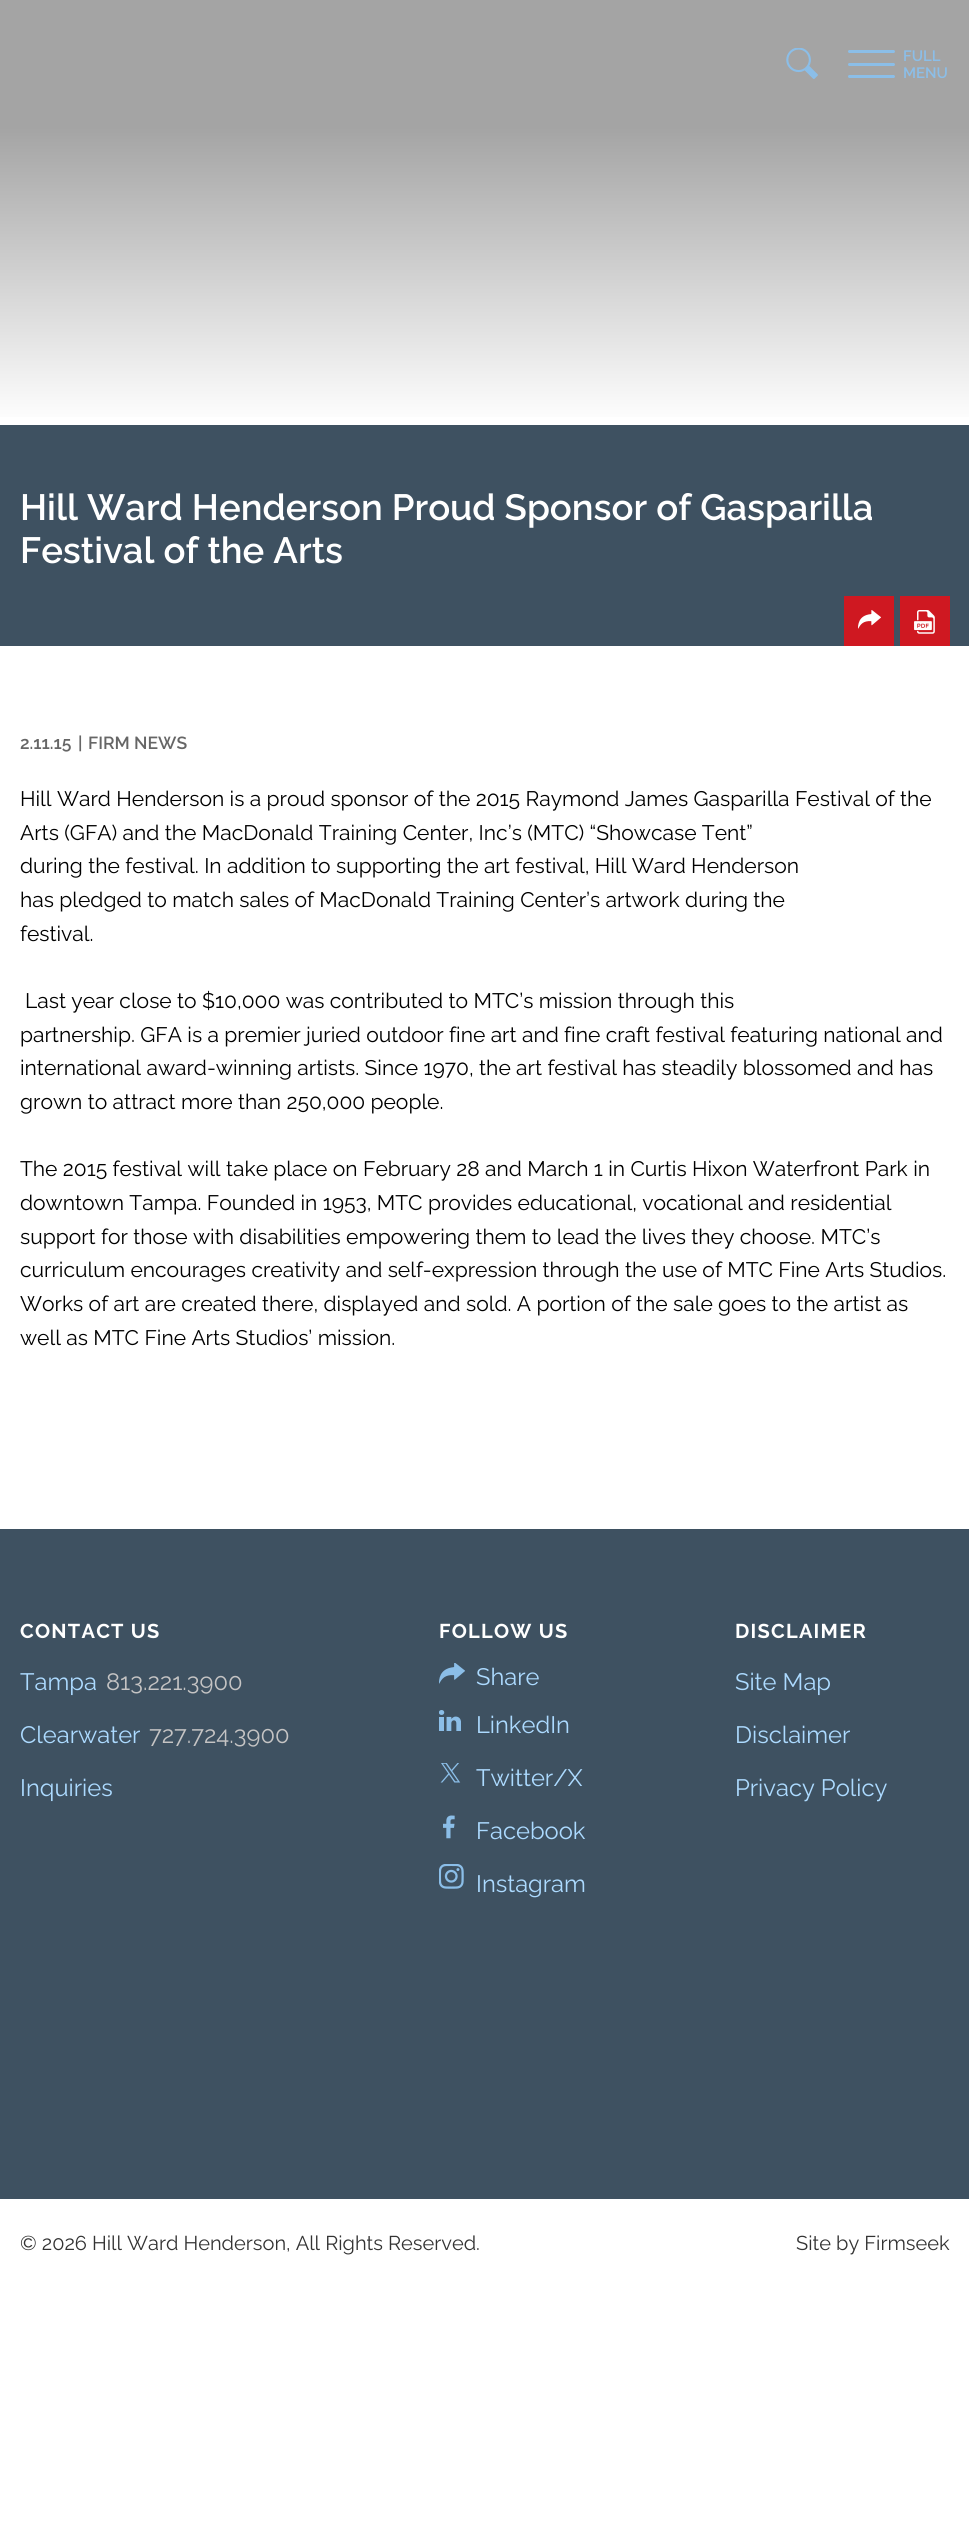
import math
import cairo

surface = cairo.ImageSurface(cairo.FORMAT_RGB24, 969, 2545)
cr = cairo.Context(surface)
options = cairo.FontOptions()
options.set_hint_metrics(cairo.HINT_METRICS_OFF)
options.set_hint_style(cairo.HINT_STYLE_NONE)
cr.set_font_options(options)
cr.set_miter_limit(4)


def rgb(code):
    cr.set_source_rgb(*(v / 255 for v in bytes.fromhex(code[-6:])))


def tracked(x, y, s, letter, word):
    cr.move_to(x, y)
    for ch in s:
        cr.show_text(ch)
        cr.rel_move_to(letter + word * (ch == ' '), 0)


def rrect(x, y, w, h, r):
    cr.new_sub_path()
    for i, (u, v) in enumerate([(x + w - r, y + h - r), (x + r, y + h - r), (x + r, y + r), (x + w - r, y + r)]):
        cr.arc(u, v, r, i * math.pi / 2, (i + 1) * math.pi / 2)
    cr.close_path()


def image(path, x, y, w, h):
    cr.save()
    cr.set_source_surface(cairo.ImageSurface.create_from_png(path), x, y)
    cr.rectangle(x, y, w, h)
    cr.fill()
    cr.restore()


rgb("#ffffff")
cr.paint()
gradient = cairo.LinearGradient(485, 0, 485, 425)
gradient.add_color_stop_rgba(0.3, 0.643, 0.643, 0.643, 1)
gradient.add_color_stop_rgba(1, 1, 1, 1, 1)
cr.set_source(gradient)
cr.rectangle(0, 0, 969, 417)
cr.fill()
image("img/1.png", 786, 48, 32, 31)
rgb("#8bbee8")
rrect(848, 50, 47, 3, 1.5)
cr.fill()
rrect(848, 63, 47, 3, 1.5)
cr.fill()
rrect(848, 75, 47, 3, 1.5)
cr.fill()
rgb("#3e5161")
cr.rectangle(0, 425, 969, 221)
cr.fill()
rgb("#cf1821")
cr.rectangle(844, 596, 50, 50)
cr.fill()
image("img/2.png", 858, 610, 23, 19)
cr.rectangle(900, 596, 50, 50)
cr.fill()
image("img/3.png", 914, 610, 21, 24)
rgb("#3e5161")
cr.rectangle(0, 1529, 969, 670)
cr.fill()
image("img/4.png", 439, 1663, 26, 21)
image("img/5.png", 439, 1710, 22, 21)
image("img/6.png", 440, 1763, 21, 20)
image("img/7.png", 443, 1815, 12, 24)
image("img/8.png", 439, 1864, 25, 25)
cr.select_font_face("Raleway SemiBold")
cr.set_font_size(15)
rgb("#8bbee8")
cr.move_to(903, 61)
cr.show_text("FULL")
cr.move_to(903, 78)
cr.show_text("MENU")
cr.set_font_size(36.5)
rgb("#ffffff")
cr.move_to(20, 520)
cr.show_text("Hill Ward Henderson Proud Sponsor of Gasparilla")
cr.move_to(20, 563)
cr.show_text("Festival of the Arts")
cr.set_font_size(17.5)
rgb("#666666")
for x, y, s in [
    (20, 749, "2.11.15"),
    (78, 749, "|"),
    (88, 749, "FIRM NEWS"),
]:
    cr.move_to(x, y)
    cr.show_text(s)
cr.select_font_face("Raleway")
cr.set_font_size(21.05)
rgb("#000000")
for x, y, s in [
    (20, 806, "Hill Ward Henderson is a proud sponsor of the 2015 Raymond James Gasparilla Festival of"),
    (900, 806, "the"),
    (20, 840, "Arts (GFA) and the MacDonald Training Center, Inc’s (MTC) “Showcase Tent”"),
    (20, 873, "during the festival. In addition to supporting the art festival, Hill Ward Henderson"),
    (20, 907, "has pledged to match sales of MacDonald Training Center’s artwork during the"),
    (20, 941, "festival."),
    (25, 1008, "Last year close to $10,000 was contributed to MTC’s mission through this"),
    (20, 1042, "partnership. GFA is a premier juried outdoor fine art and fine craft festival featuring national and"),
    (20, 1075, "international award-winning artists. Since 1970, the art festival has steadily blossomed and has"),
    (20, 1109, "grown to attract more than 250,000 people."),
    (20, 1176, "The 2015 festival will take place on February 28 and March 1 in Curtis Hixon Waterfront Park in"),
    (20, 1210, "downtown Tampa. Founded in 1953, MTC provides educational, vocational and residential"),
    (20, 1244, "support for those with disabilities empowering them to lead the lives they choose. MTC’s"),
    (20, 1277, "curriculum encourages creativity and self-expression through the use of MTC Fine Arts Studios."),
    (20, 1311, "Works of art are created there, displayed and sold. A portion of the sale goes to the artist as"),
    (20, 1345, "well as MTC Fine Arts Studios’ mission."),
]:
    cr.move_to(x, y)
    cr.show_text(s)
cr.select_font_face("Raleway", cairo.FONT_SLANT_NORMAL, cairo.FONT_WEIGHT_BOLD)
cr.set_font_size(20)
rgb("#ffffff")
tracked(20, 1638, "CONTACT US", 1.25, 0)
cr.select_font_face("Raleway")
cr.set_font_size(23.75)
rgb("#acdaff")
cr.move_to(20, 1690)
cr.show_text("Tampa")
rgb("#c5c4c4")
cr.move_to(106, 1690)
cr.show_text("813.221.3900")
rgb("#acdaff")
cr.move_to(20, 1743)
cr.show_text("Clearwater")
rgb("#c5c4c4")
cr.move_to(149, 1743)
cr.show_text("727.724.3900")
rgb("#acdaff")
cr.move_to(20, 1796)
cr.show_text("Inquiries")
cr.select_font_face("Raleway", cairo.FONT_SLANT_NORMAL, cairo.FONT_WEIGHT_BOLD)
cr.set_font_size(20)
rgb("#ffffff")
tracked(439, 1638, "FOLLOW US", 1.25, 0)
cr.select_font_face("Raleway")
cr.set_font_size(23.75)
rgb("#acdaff")
for x, y, s in [
    (476, 1685, "Share"),
    (476, 1733, "LinkedIn"),
    (476, 1786, "Twitter/X"),
    (476, 1839, "Facebook"),
    (476, 1892, "Instagram"),
]:
    cr.move_to(x, y)
    cr.show_text(s)
cr.select_font_face("Raleway", cairo.FONT_SLANT_NORMAL, cairo.FONT_WEIGHT_BOLD)
cr.set_font_size(20)
rgb("#ffffff")
tracked(735, 1638, "DISCLAIMER", 1.25, 0)
cr.select_font_face("Raleway")
cr.set_font_size(23.75)
rgb("#acdaff")
for x, y, s in [
    (735, 1690, "Site Map"),
    (735, 1743, "Disclaimer"),
    (735, 1796, "Privacy Policy"),
]:
    cr.move_to(x, y)
    cr.show_text(s)
cr.set_font_size(20)
rgb("#333333")
cr.move_to(20, 2250)
cr.show_text("© 2026 Hill Ward Henderson, All Rights Reserved.")
cr.move_to(796, 2250)
cr.show_text("Site by Firmseek")
surface.write_to_png("page.png")
